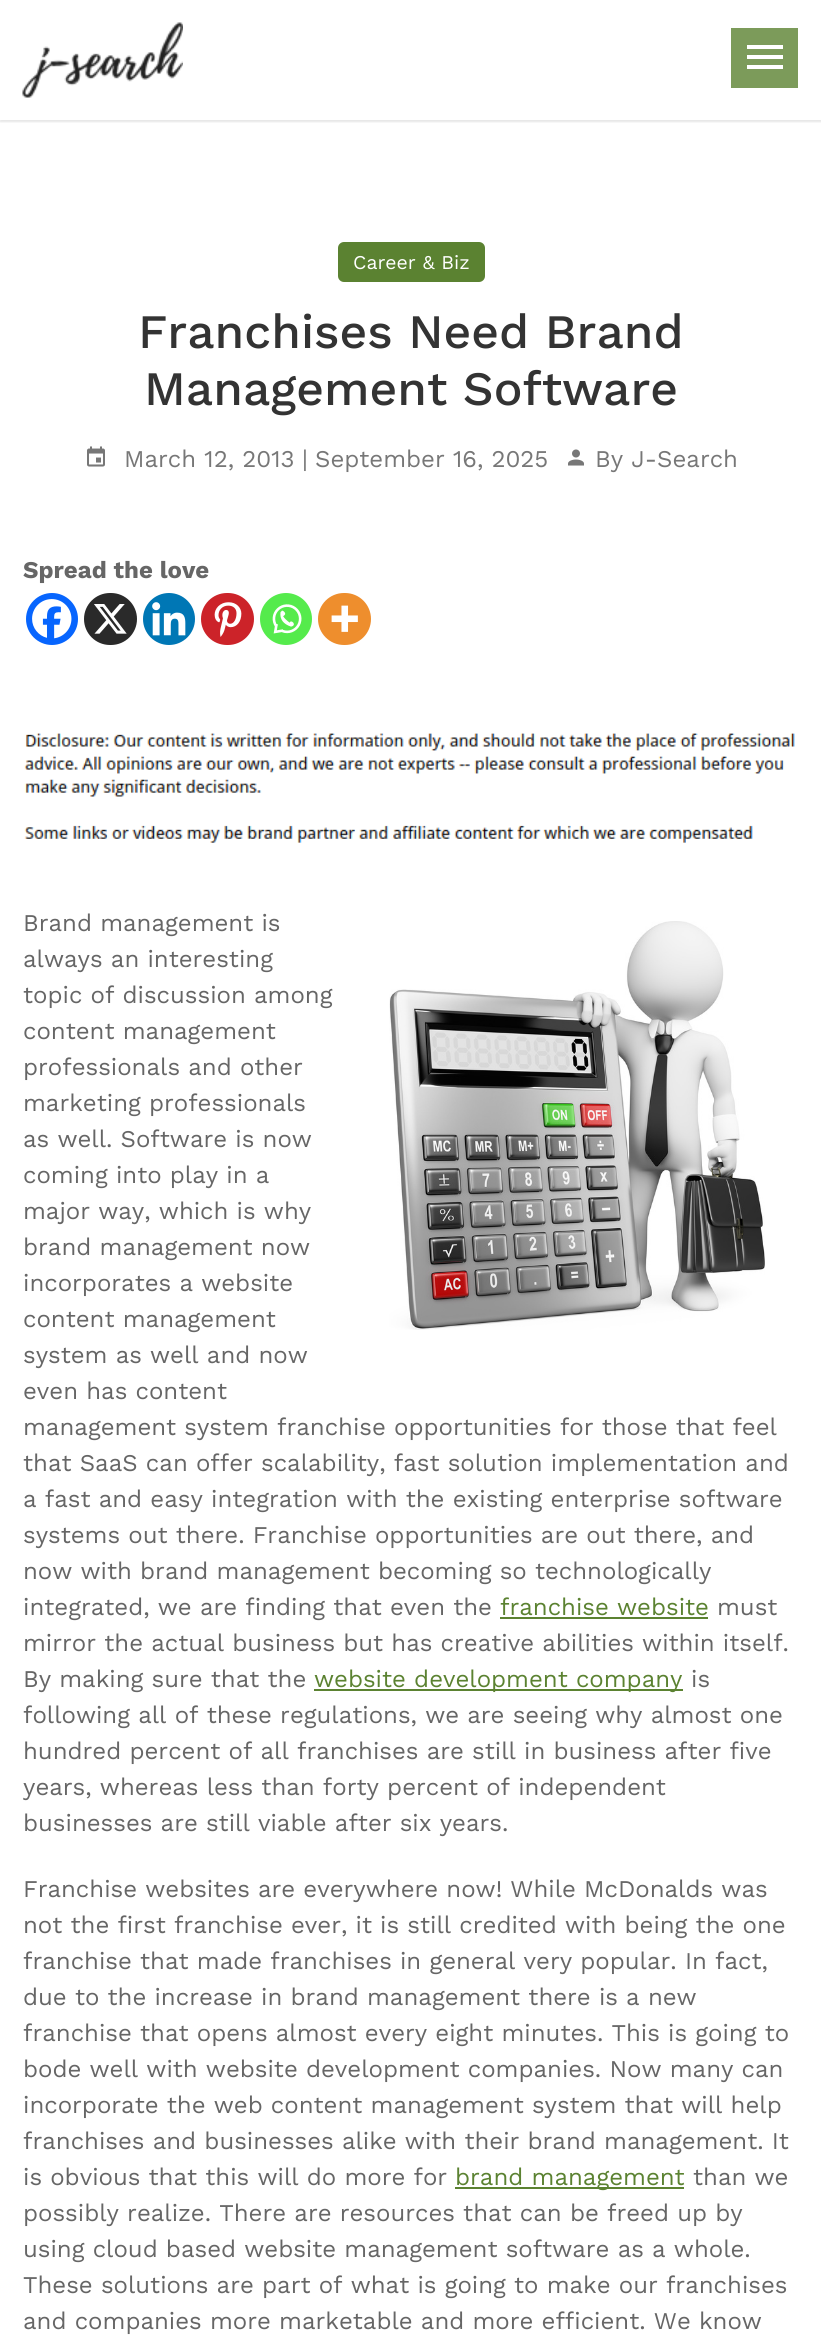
import math
import cairo

surface = cairo.ImageSurface(cairo.FORMAT_RGB24, 821, 2346)
cr = cairo.Context(surface)
options = cairo.FontOptions()
options.set_hint_metrics(cairo.HINT_METRICS_OFF)
options.set_hint_style(cairo.HINT_STYLE_NONE)
cr.set_font_options(options)
cr.set_miter_limit(4)


def rgb(code):
    cr.set_source_rgb(*(v / 255 for v in bytes.fromhex(code[-6:])))


def rrect(x, y, w, h, r):
    cr.new_sub_path()
    for i, (u, v) in enumerate([(x + w - r, y + h - r), (x + r, y + h - r), (x + r, y + r), (x + w - r, y + r)]):
        cr.arc(u, v, r, i * math.pi / 2, (i + 1) * math.pi / 2)
    cr.close_path()


def soft_shadow(x, y, w, h, r, blur, alpha):
    cr.push_group_with_content(cairo.CONTENT_ALPHA)
    cr.set_operator(cairo.OPERATOR_SOURCE)
    for i in range(15, -16, -2):
        e = blur * i / 6
        if min(w, h) + 2 * e > 0:
            cr.set_source_rgba(0, 0, 0, alpha * math.erfc((i - 1) / 8.5) / 2)
            rrect(x - e, y - e, w + 2 * e, h + 2 * e, max(0, min(r + e + blur * .6, min(w, h) / 2 + e)))
            cr.fill()
    cr.mask(cr.pop_group())


def image(path, x, y, w, h):
    cr.save()
    cr.set_source_surface(cairo.ImageSurface.create_from_png(path), x, y)
    cr.rectangle(x, y, w, h)
    cr.fill()
    cr.restore()


rgb("#ffffff")
cr.paint()
cr.save()
cr.rectangle(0, 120, 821, 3)
cr.clip()
rgb("#000000")
soft_shadow(0, 2, 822, 120, 0, 1, 0.1)
cr.restore()
image("img/1.png", 22, 22, 161, 76)
rgb("#7c9b5a")
cr.rectangle(731, 28, 67, 60)
cr.fill()
rgb("#ffffff")
cr.new_path()
cr.move_to(747, 45)
cr.line_to(783, 45)
cr.line_to(783, 49)
cr.line_to(747, 49)
cr.close_path()
cr.move_to(747, 55)
cr.line_to(783, 55)
cr.line_to(783, 59)
cr.line_to(747, 59)
cr.close_path()
cr.move_to(747, 65)
cr.line_to(783, 65)
cr.line_to(783, 69)
cr.line_to(747, 69)
cr.close_path()
cr.fill()
rgb("#5b8231")
rrect(338, 242, 147, 40, 6)
cr.fill()
image("img/2.png", 87, 446, 18, 21)
image("img/3.png", 568, 449, 16, 17)
rgb("#0765fe")
cr.arc(52, 619, 26, 0, 2 * math.pi)
cr.fill()
image("img/4.png", 32, 599, 40, 40)
rgb("#2a2a2a")
rrect(84, 593, 53, 52, 26)
cr.fill()
image("img/5.png", 94, 604, 33, 30)
rgb("#0077b5")
cr.arc(169, 619, 26, 0, 2 * math.pi)
cr.fill()
image("img/6.png", 152, 602, 34, 34)
rgb("#cc2329")
rrect(201, 593, 53, 52, 26)
cr.fill()
image("img/7.png", 214, 602, 28, 35)
rgb("#55eb4c")
cr.arc(286, 619, 26, 0, 2 * math.pi)
cr.fill()
image("img/8.png", 272, 604, 30, 30)
rgb("#ee8e2d")
rrect(318, 593, 53, 52, 26)
cr.fill()
image("img/9.png", 331, 605, 27, 27)
image("img/10.png", 24, 733, 771, 110)
rgb("#5b8231")
cr.rectangle(500, 1617, 208, 2)
cr.fill()
cr.rectangle(314, 1689, 369, 2)
cr.fill()
image("img/11.png", 389, 921, 376, 409)
cr.rectangle(455, 2187, 229, 2)
cr.fill()
cr.select_font_face("Work Sans")
cr.set_font_size(19.5)
rgb("#ffffff")
cr.move_to(353, 269)
cr.show_text("Career & Biz")
cr.select_font_face("Work Sans Medium")
cr.set_font_size(48)
rgb("#333333")
cr.move_to(138, 348)
cr.show_text("Franchises Need Brand")
cr.move_to(144, 405)
cr.show_text("Management Software")
cr.select_font_face("Work Sans")
cr.set_font_size(24)
rgb("#777777")
for x, y, s in [
    (124, 467, "March 12, 2013"),
    (302, 467, "|"),
    (315, 467, "September 16, 2025"),
    (595, 467, "By J-Search"),
]:
    cr.move_to(x, y)
    cr.show_text(s)
cr.select_font_face("Work Sans", cairo.FONT_SLANT_NORMAL, cairo.FONT_WEIGHT_BOLD)
rgb("#666666")
cr.move_to(23, 578)
cr.show_text("Spread the love")
cr.select_font_face("Work Sans")
for x, y, s in [
    (23, 931, "Brand management is"),
    (23, 967, "always an interesting"),
    (23, 1003, "topic of discussion among"),
    (23, 1039, "content management"),
    (23, 1075, "professionals and other"),
    (23, 1111, "marketing professionals"),
    (23, 1147, "as well. Software is now"),
    (23, 1183, "coming into play in a"),
    (23, 1219, "major way, which is why"),
    (23, 1255, "brand management now"),
    (23, 1291, "incorporates a website"),
    (23, 1327, "content management"),
    (23, 1363, "system as well and now"),
    (23, 1399, "even has content"),
    (23, 1435, "management system franchise opportunities for those that feel"),
    (23, 1471, "that SaaS can offer scalability, fast solution implementation and"),
    (23, 1507, "a fast and easy integration with the existing enterprise software"),
    (23, 1543, "systems out there. Franchise opportunities are out there, and"),
    (23, 1579, "now with brand management becoming so technologically"),
    (23, 1615, "integrated, we are finding that even the"),
]:
    cr.move_to(x, y)
    cr.show_text(s)
rgb("#5b8231")
cr.move_to(500, 1615)
cr.show_text("franchise website")
rgb("#666666")
for x, y, s in [
    (717, 1615, "must"),
    (23, 1651, "mirror the actual business but has creative abilities within itself."),
    (23, 1687, "By making sure that the"),
]:
    cr.move_to(x, y)
    cr.show_text(s)
rgb("#5b8231")
cr.move_to(314, 1687)
cr.show_text("website development company")
rgb("#666666")
for x, y, s in [
    (691, 1687, "is"),
    (23, 1723, "following all of these regulations, we are seeing why almost one"),
    (23, 1759, "hundred percent of all franchises are still in business after five"),
    (23, 1795, "years, whereas less than forty percent of independent"),
    (23, 1831, "businesses are still viable after six years."),
    (23, 1897, "Franchise websites are everywhere now! While McDonalds was"),
    (23, 1933, "not the first franchise ever, it is still credited with being the one"),
    (23, 1969, "franchise that made franchises in general very popular. In fact,"),
    (23, 2005, "due to the increase in brand management there is a new"),
    (23, 2041, "franchise that opens almost every eight minutes. This is going to"),
    (23, 2077, "bode well with website development companies. Now many can"),
    (23, 2113, "incorporate the web content management system that will help"),
    (23, 2149, "franchises and businesses alike with their brand management. It"),
    (23, 2185, "is obvious that this will do more for"),
]:
    cr.move_to(x, y)
    cr.show_text(s)
rgb("#5b8231")
cr.move_to(455, 2185)
cr.show_text("brand management")
rgb("#666666")
for x, y, s in [
    (693, 2185, "than we"),
    (23, 2221, "possibly realize. There are resources that can be freed up by"),
    (23, 2257, "using cloud based website management software as a whole."),
    (23, 2293, "These solutions are part of what is going to make our franchises"),
    (23, 2329, "and companies more marketable and more efficient. We know"),
]:
    cr.move_to(x, y)
    cr.show_text(s)
surface.write_to_png("page.png")
